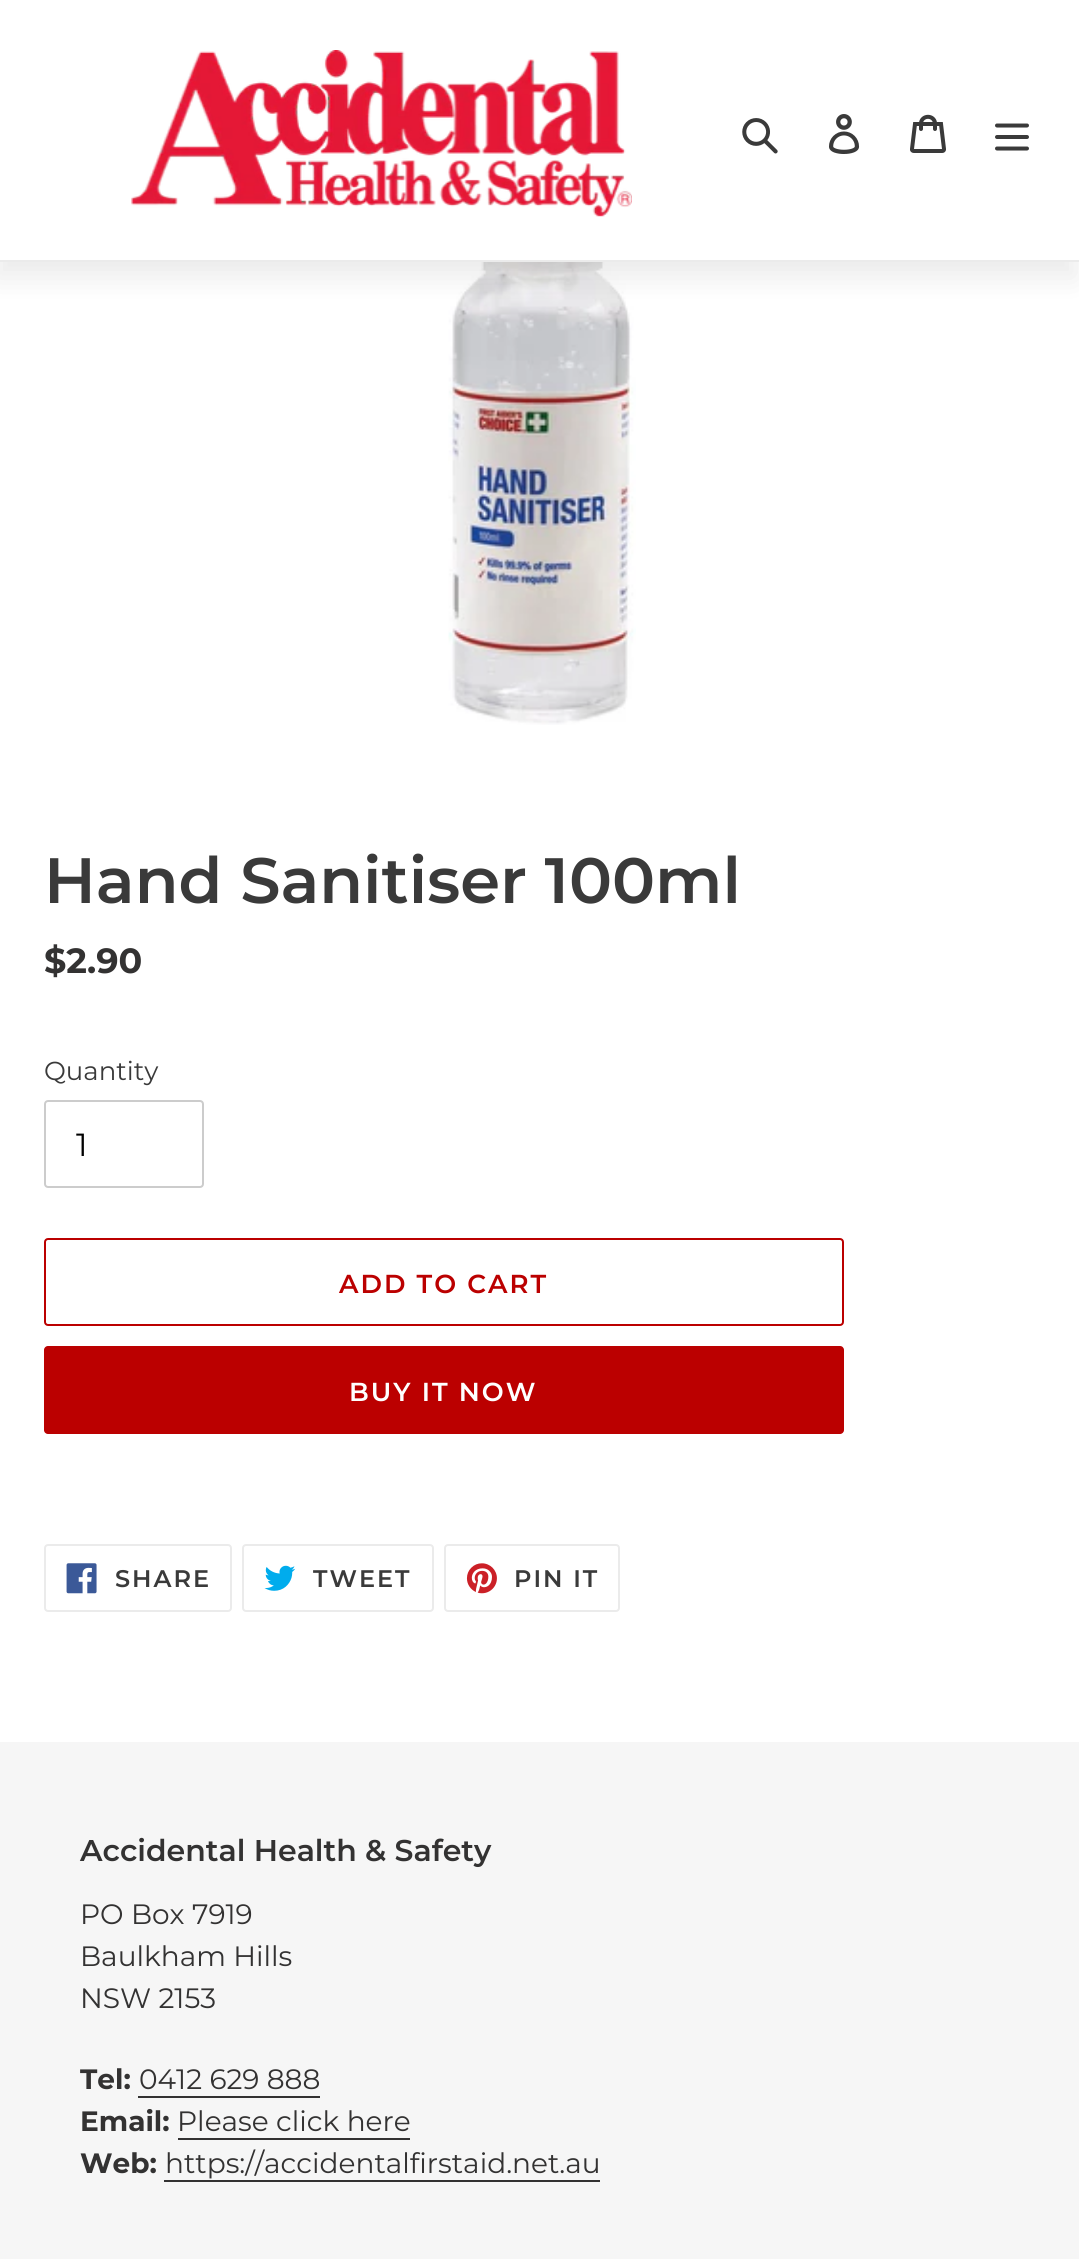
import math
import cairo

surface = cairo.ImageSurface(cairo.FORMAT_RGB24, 1079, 2259)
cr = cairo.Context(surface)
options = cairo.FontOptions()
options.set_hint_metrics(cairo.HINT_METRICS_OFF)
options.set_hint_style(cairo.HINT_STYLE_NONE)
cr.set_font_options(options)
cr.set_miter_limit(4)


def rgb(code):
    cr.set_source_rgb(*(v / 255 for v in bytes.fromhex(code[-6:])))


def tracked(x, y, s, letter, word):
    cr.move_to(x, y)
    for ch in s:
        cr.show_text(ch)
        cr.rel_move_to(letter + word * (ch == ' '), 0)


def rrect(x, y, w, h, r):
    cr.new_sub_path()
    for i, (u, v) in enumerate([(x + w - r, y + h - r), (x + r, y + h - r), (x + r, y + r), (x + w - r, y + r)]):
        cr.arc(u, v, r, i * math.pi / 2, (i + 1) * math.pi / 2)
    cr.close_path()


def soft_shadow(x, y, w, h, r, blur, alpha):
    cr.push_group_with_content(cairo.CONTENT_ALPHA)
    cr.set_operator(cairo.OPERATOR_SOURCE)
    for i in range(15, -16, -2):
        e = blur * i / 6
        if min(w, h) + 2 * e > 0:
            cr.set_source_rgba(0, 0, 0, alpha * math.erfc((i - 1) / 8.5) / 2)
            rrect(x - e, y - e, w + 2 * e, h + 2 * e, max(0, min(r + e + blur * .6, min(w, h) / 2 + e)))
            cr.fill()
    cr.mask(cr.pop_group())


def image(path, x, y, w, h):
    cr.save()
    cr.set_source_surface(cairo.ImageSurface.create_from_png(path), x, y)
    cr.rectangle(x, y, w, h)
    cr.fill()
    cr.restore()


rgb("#ffffff")
cr.paint()
image("img/6.png", 448, 262, 188, 463)
rgb("#000000")
soft_shadow(-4, 16, 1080, 262, 0, 14, 0.08)
rgb("#ffffff")
cr.rectangle(0, 0, 1079, 260)
cr.fill()
rgb("#ebebeb")
cr.rectangle(0, 260, 1079, 2)
cr.fill()
image("img/1.png", 131, 50, 501, 167)
image("img/2.png", 742, 118, 36, 36)
image("img/3.png", 829, 114, 31, 40)
image("img/4.png", 910, 114, 36, 39)
image("img/5.png", 995, 123, 34, 28)
rrect(45, 1101, 158, 86, 3)
rgb("#cccccc")
cr.stroke()
rrect(45, 1239, 798, 86, 3)
rgb("#bb0000")
cr.stroke()
rrect(44, 1346, 800, 88, 4)
cr.fill()
rrect(45, 1545, 186, 66, 3)
rgb("#ebebeb")
cr.stroke()
image("img/7.png", 66, 1563, 31, 31)
rrect(243, 1545, 190, 66, 3)
cr.stroke()
image("img/8.png", 264, 1565, 32, 26)
rrect(445, 1545, 174, 66, 3)
cr.stroke()
image("img/9.png", 466, 1563, 31, 31)
for x, y, w, h, color in [
    (0, 1742, 1079, 517, "#f6f6f6"),
    (138, 2096, 182, 2, "#333232"),
    (178, 2138, 232, 2, "#333232"),
    (164, 2180, 436, 2, "#333232"),
]:
    rgb(color)
    cr.rectangle(x, y, w, h)
    cr.fill()
cr.select_font_face("Montserrat SemiBold")
cr.set_font_size(64)
rgb("#3a3a3a")
cr.move_to(44, 903)
cr.show_text("Hand Sanitiser 100ml")
cr.select_font_face("Montserrat", cairo.FONT_SLANT_NORMAL, cairo.FONT_WEIGHT_BOLD)
cr.set_font_size(35)
rgb("#333232")
cr.move_to(44, 973)
cr.show_text("$2.90")
cr.select_font_face("Montserrat")
cr.set_font_size(26)
rgb("#3a3a3a")
cr.move_to(44, 1080)
cr.show_text("Quantity")
cr.set_font_size(32)
rgb("#000000")
cr.move_to(76, 1156)
cr.show_text("1")
cr.select_font_face("Montserrat SemiBold")
cr.set_font_size(26)
rgb("#bb0000")
tracked(339, 1293, "ADD TO CART", 2, 0)
rgb("#ffffff")
tracked(349, 1401, "BUY IT NOW", 2, 0)
cr.set_font_size(24)
rgb("#3a3a3a")
for x, y, s in [
    (115, 1587, "SHARE"),
    (313, 1587, "TWEET"),
    (514, 1587, "PIN IT"),
]:
    tracked(x, y, s, 2, 0)
cr.set_font_size(30)
rgb("#333232")
cr.move_to(80, 1861)
cr.show_text("Accidental Health & Safety")
cr.select_font_face("Montserrat")
cr.set_font_size(28)
for x, y, s in [
    (80, 1924, "PO Box 7919"),
    (80, 1966, "Baulkham Hills"),
    (80, 2008, "NSW 2153"),
]:
    cr.move_to(x, y)
    cr.show_text(s)
cr.select_font_face("Montserrat", cairo.FONT_SLANT_NORMAL, cairo.FONT_WEIGHT_BOLD)
cr.move_to(80, 2089)
cr.show_text("Tel:")
cr.select_font_face("Montserrat")
cr.move_to(139, 2089)
cr.show_text("0412 629 888")
cr.select_font_face("Montserrat", cairo.FONT_SLANT_NORMAL, cairo.FONT_WEIGHT_BOLD)
cr.move_to(80, 2131)
cr.show_text("Email:")
cr.select_font_face("Montserrat")
cr.move_to(177, 2131)
cr.show_text("Please click here")
cr.select_font_face("Montserrat", cairo.FONT_SLANT_NORMAL, cairo.FONT_WEIGHT_BOLD)
cr.move_to(80, 2173)
cr.show_text("Web:")
cr.select_font_face("Montserrat")
cr.move_to(165, 2173)
cr.show_text("https://accidentalfirstaid.net.au")
surface.write_to_png("page.png")
